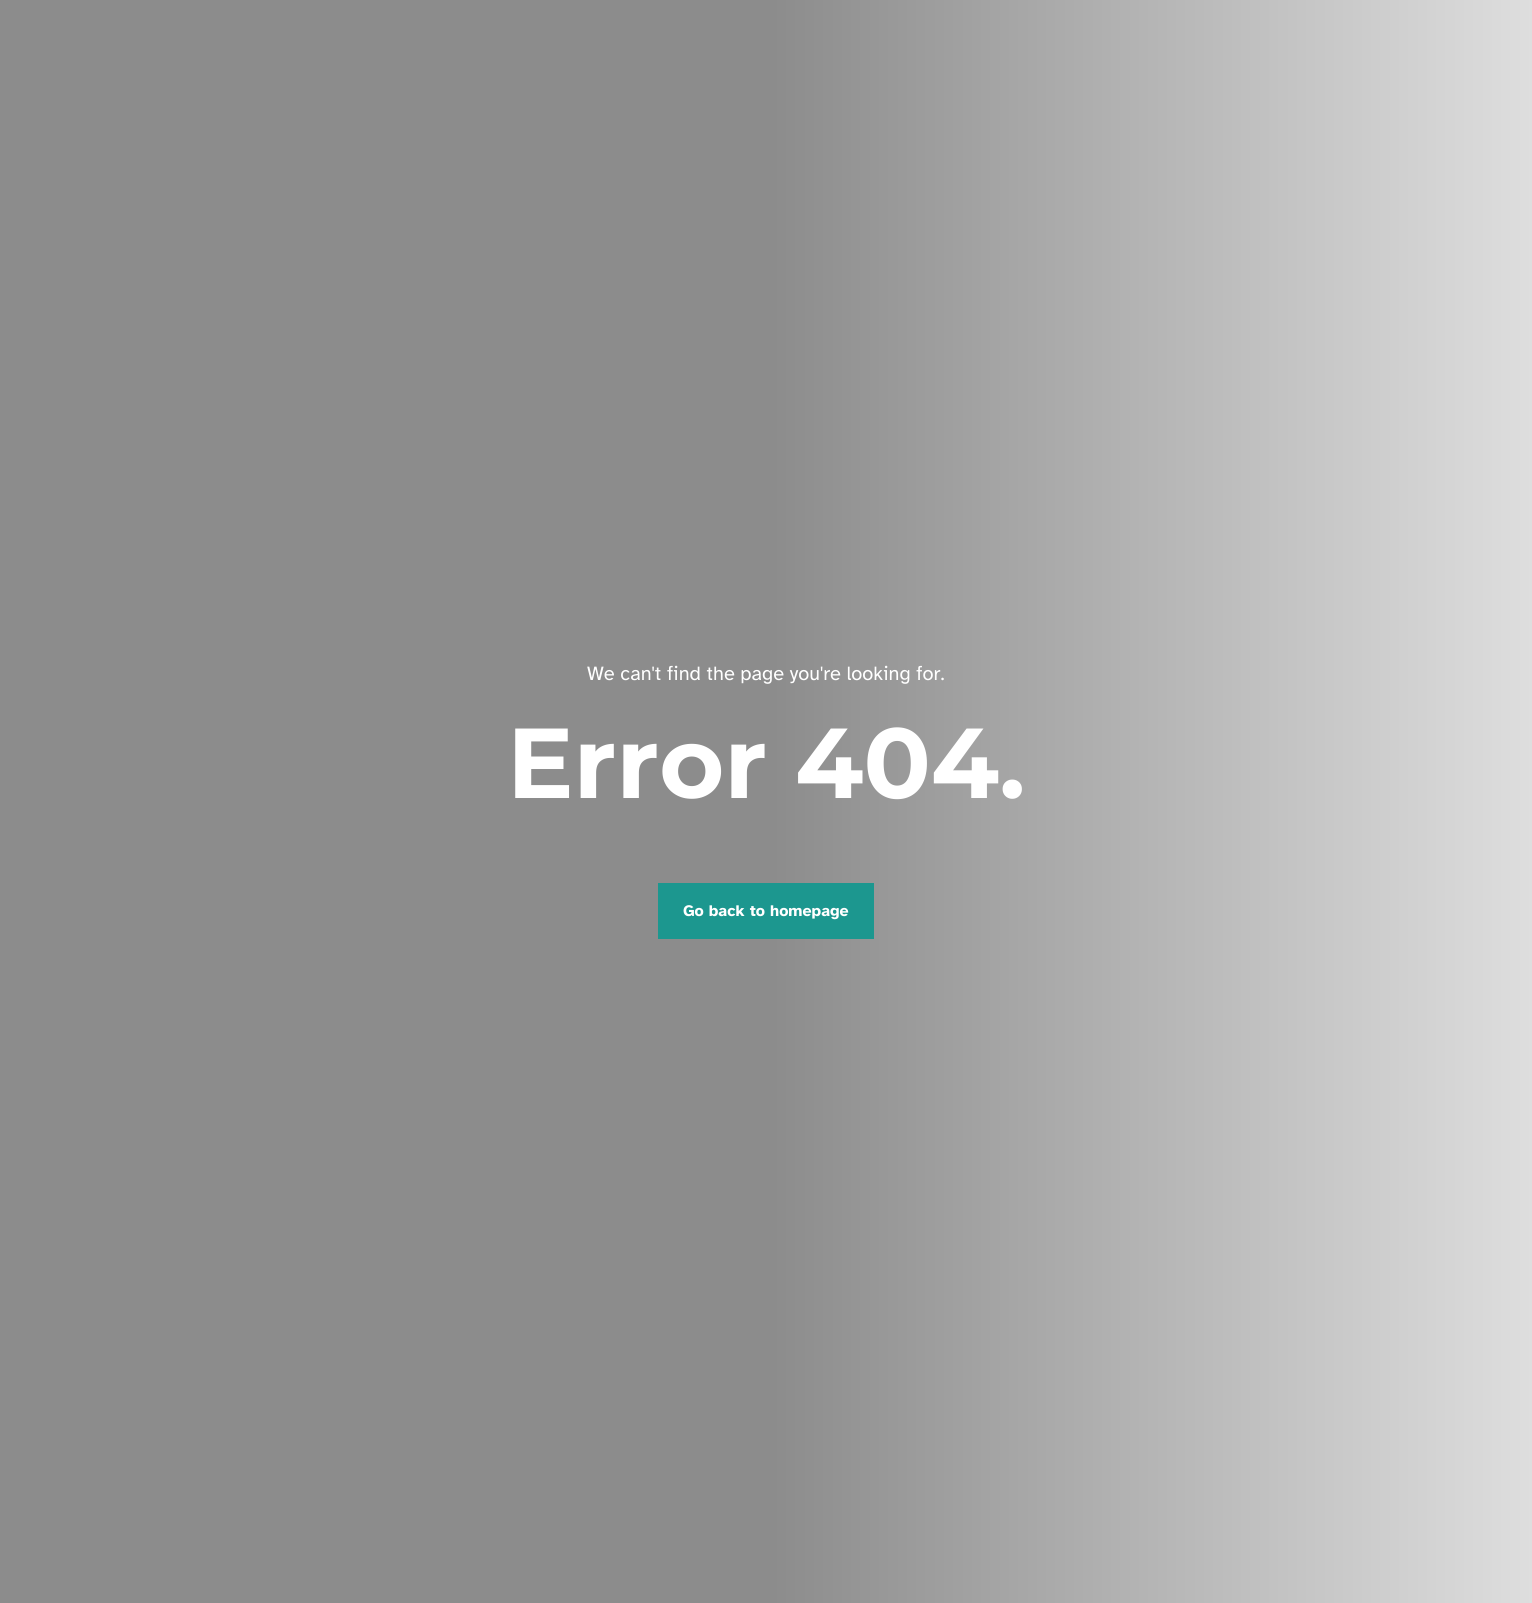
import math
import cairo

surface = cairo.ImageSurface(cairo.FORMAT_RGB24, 1532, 1603)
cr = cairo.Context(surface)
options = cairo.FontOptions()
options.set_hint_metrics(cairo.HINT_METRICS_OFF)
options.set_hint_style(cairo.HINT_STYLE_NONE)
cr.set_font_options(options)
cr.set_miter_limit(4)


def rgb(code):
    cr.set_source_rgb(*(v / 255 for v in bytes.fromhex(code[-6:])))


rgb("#ffffff")
cr.paint()
gradient = cairo.LinearGradient(-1, 802, 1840, 802)
gradient.add_color_stop_rgba(0.42, 0.549, 0.549, 0.549, 1)
gradient.add_color_stop_rgba(1, 1, 1, 1, 1)
cr.set_source(gradient)
cr.rectangle(0, 0, 1532, 1603)
cr.fill()
rgb("#1c978f")
cr.rectangle(658, 883, 216, 56)
cr.fill()
cr.select_font_face("Atkinson Hyperlegible")
cr.set_font_size(20)
rgb("#ffffff")
cr.move_to(587, 680)
cr.show_text("We can't find the page you're looking for.")
cr.select_font_face("Montserrat", cairo.FONT_SLANT_NORMAL, cairo.FONT_WEIGHT_BOLD)
cr.set_font_size(99.25)
cr.move_to(507, 798)
cr.show_text("Error 404.")
cr.select_font_face("Atkinson Hyperlegible", cairo.FONT_SLANT_NORMAL, cairo.FONT_WEIGHT_BOLD)
cr.set_font_size(16)
cr.move_to(683, 916)
cr.show_text("Go back to homepage")
surface.write_to_png("page.png")
